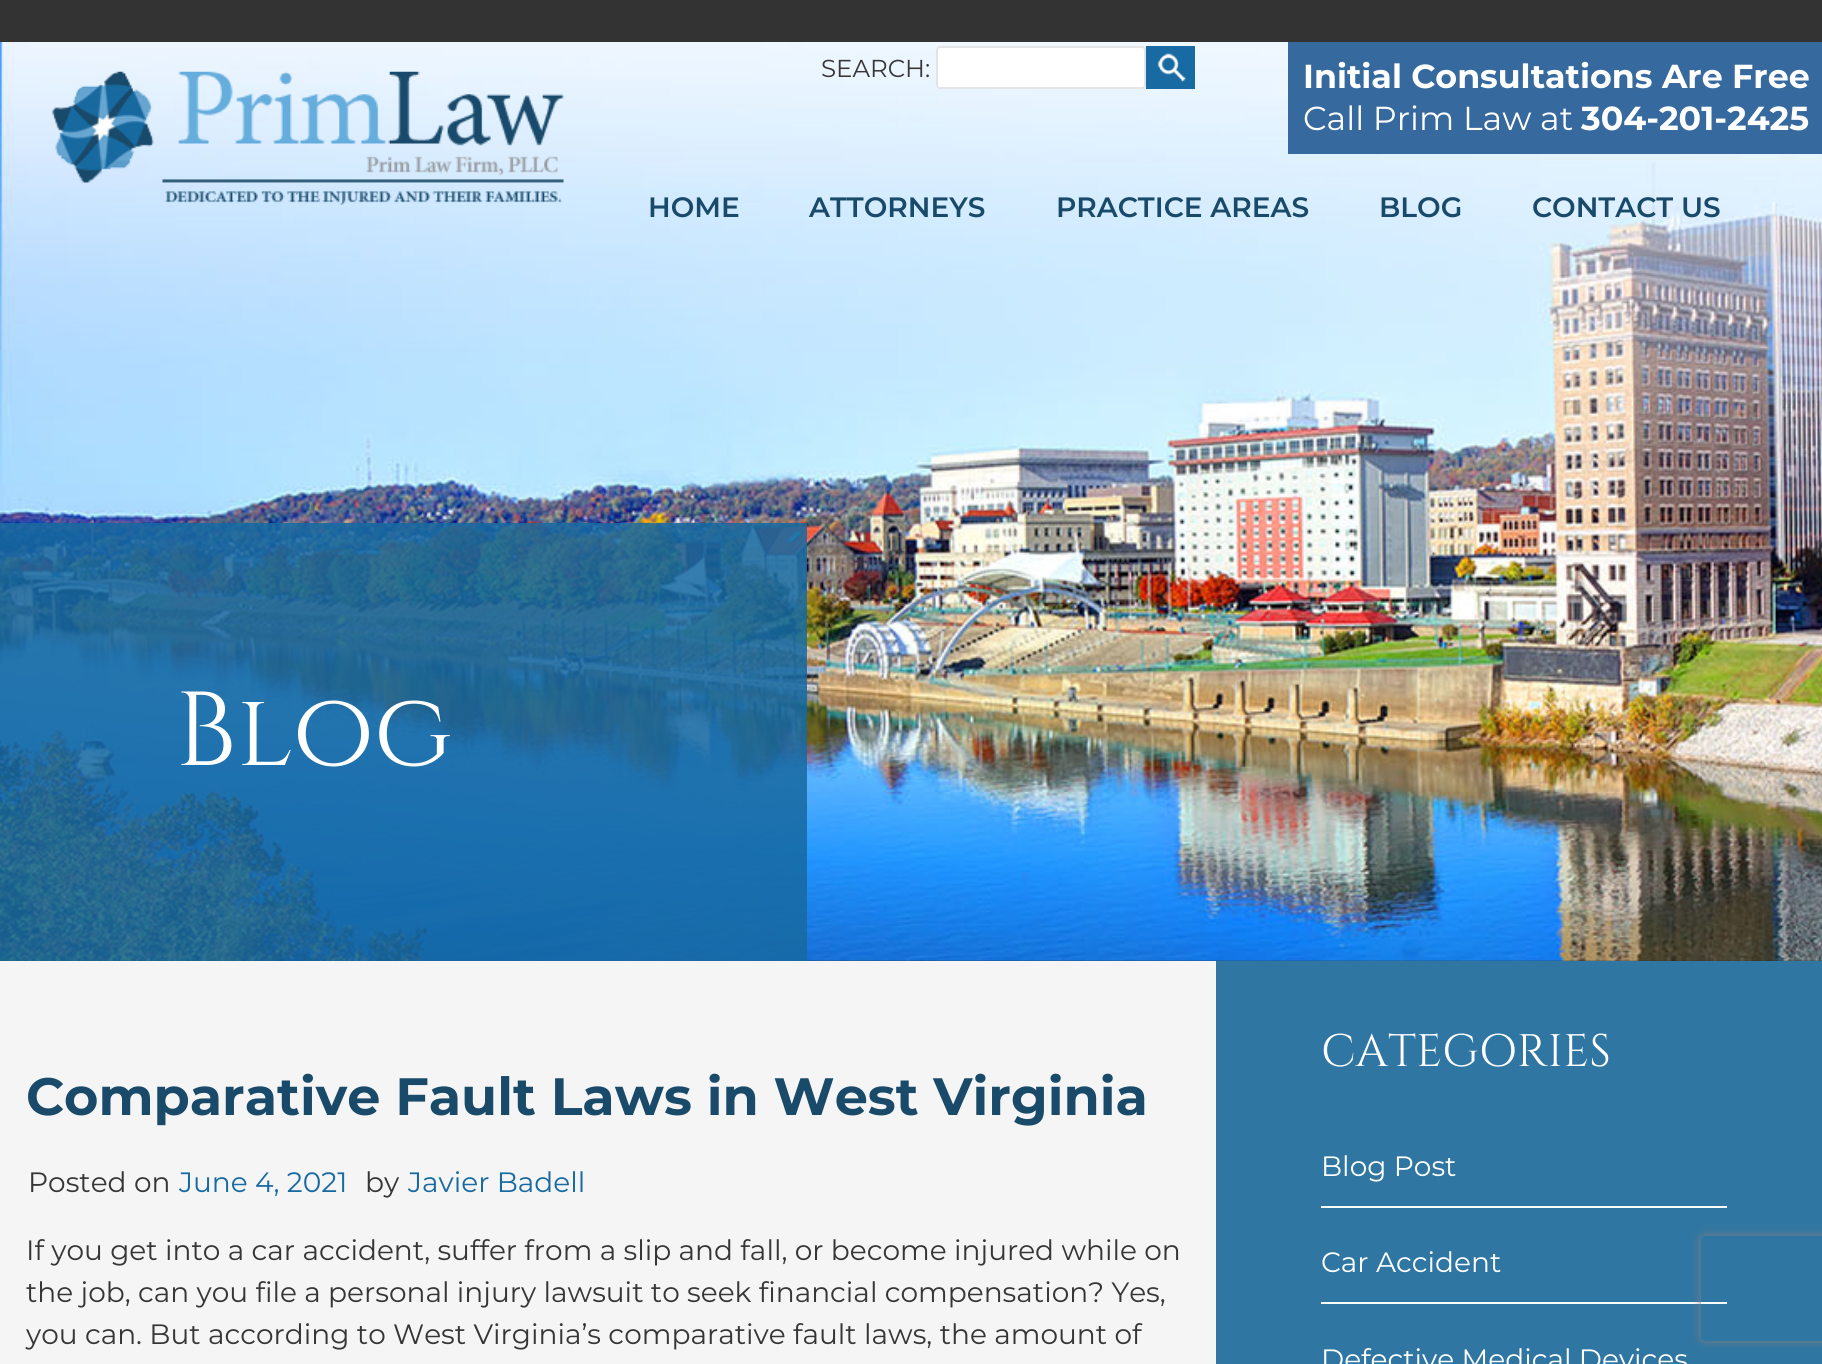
import math
import cairo

surface = cairo.ImageSurface(cairo.FORMAT_RGB24, 1822, 1364)
cr = cairo.Context(surface)
options = cairo.FontOptions()
options.set_hint_metrics(cairo.HINT_METRICS_OFF)
options.set_hint_style(cairo.HINT_STYLE_NONE)
cr.set_font_options(options)
cr.set_miter_limit(4)


def rgb(code):
    cr.set_source_rgb(*(v / 255 for v in bytes.fromhex(code[-6:])))


def rrect(x, y, w, h, r):
    cr.new_sub_path()
    for i, (u, v) in enumerate([(x + w - r, y + h - r), (x + r, y + h - r), (x + r, y + r), (x + w - r, y + r)]):
        cr.arc(u, v, r, i * math.pi / 2, (i + 1) * math.pi / 2)
    cr.close_path()


def soft_shadow(x, y, w, h, r, blur, alpha):
    cr.push_group_with_content(cairo.CONTENT_ALPHA)
    cr.set_operator(cairo.OPERATOR_SOURCE)
    for i in range(15, -16, -2):
        e = blur * i / 6
        if min(w, h) + 2 * e > 0:
            cr.set_source_rgba(0, 0, 0, alpha * math.erfc((i - 1) / 8.5) / 2)
            rrect(x - e, y - e, w + 2 * e, h + 2 * e, max(0, min(r + e + blur * .6, min(w, h) / 2 + e)))
            cr.fill()
    cr.mask(cr.pop_group())


def image(path, x, y, w, h):
    cr.save()
    cr.set_source_surface(cairo.ImageSurface.create_from_png(path), x, y)
    cr.rectangle(x, y, w, h)
    cr.fill()
    cr.restore()


rgb("#333333")
cr.paint()
image("img/3.png", 0, 42, 1822, 919)
rgb("#ffffff")
rrect(936, 46, 210, 43, 4)
cr.fill()
rrect(937, 47, 208, 41, 3)
cr.set_source_rgba(0.173, 0.2, 0.22, 0.13)
cr.stroke()
rgb("#186aa2")
cr.rectangle(1146, 46, 49, 43)
cr.fill()
image("img/1.png", 1157, 53, 29, 29)
rgb("#36699e")
cr.rectangle(1288, 42, 534, 112)
cr.fill()
image("img/2.png", 52, 71, 512, 134)
cr.set_source_rgba(0.094, 0.416, 0.635, 0.87)
cr.rectangle(0, 523, 807, 438)
cr.fill()
rgb("#f5f5f5")
cr.rectangle(0, 961, 1216, 403)
cr.fill()
rgb("#2f76a2")
cr.rectangle(1216, 961, 606, 403)
cr.fill()
rgb("#ffffff")
cr.rectangle(1321, 1206, 406, 2)
cr.rectangle(1321, 1302, 406, 2)
cr.fill()
cr.save()
cr.set_fill_rule(cairo.FILL_RULE_EVEN_ODD)
cr.new_path()
cr.move_to(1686, 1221)
cr.line_to(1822, 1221)
cr.line_to(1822, 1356)
cr.line_to(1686, 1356)
cr.close_path()
cr.move_to(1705, 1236)
cr.line_to(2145, 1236)
cr.curve_to(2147, 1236, 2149, 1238, 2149, 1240)
cr.line_to(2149, 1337)
cr.curve_to(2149, 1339, 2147, 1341, 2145, 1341)
cr.line_to(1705, 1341)
cr.curve_to(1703, 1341, 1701, 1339, 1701, 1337)
cr.line_to(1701, 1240)
cr.curve_to(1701, 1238, 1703, 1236, 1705, 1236)
cr.close_path()
cr.clip()
rgb("#808080")
soft_shadow(1701, 1236, 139, 105, 4, 4.5, 1)
cr.restore()
cr.select_font_face("Montserrat")
cr.set_font_size(24.5)
rgb("#363636")
cr.move_to(821, 77)
cr.show_text("SEARCH:")
cr.select_font_face("Montserrat", cairo.FONT_SLANT_NORMAL, cairo.FONT_WEIGHT_BOLD)
cr.set_font_size(33.25)
rgb("#ffffff")
cr.move_to(1303, 88)
cr.show_text("Initial Consultations Are Free")
cr.select_font_face("Montserrat")
cr.move_to(1303, 130)
cr.show_text("Call Prim Law at")
cr.select_font_face("Montserrat", cairo.FONT_SLANT_NORMAL, cairo.FONT_WEIGHT_BOLD)
cr.move_to(1581, 130)
cr.show_text("304-201-2425")
cr.select_font_face("Montserrat SemiBold")
cr.set_font_size(28)
rgb("#1a4a6a")
for x, y, s in [
    (648, 217, "HOME"),
    (809, 217, "ATTORNEYS"),
    (1056, 217, "PRACTICE AREAS"),
    (1379, 217, "BLOG"),
    (1532, 217, "CONTACT US"),
]:
    cr.move_to(x, y)
    cr.show_text(s)
cr.select_font_face("Cinzel")
cr.set_font_size(105)
rgb("#ffffff")
cr.move_to(175, 765)
cr.show_text("Blog")
cr.select_font_face("Montserrat", cairo.FONT_SLANT_NORMAL, cairo.FONT_WEIGHT_BOLD)
cr.set_font_size(52.5)
rgb("#1a4a6a")
cr.move_to(26, 1115)
cr.show_text("Comparative Fault Laws in West Virginia")
cr.select_font_face("Montserrat")
cr.set_font_size(28)
rgb("#363636")
cr.move_to(28, 1192)
cr.show_text("Posted on")
rgb("#186aa2")
cr.move_to(179, 1192)
cr.show_text("June 4, 2021")
rgb("#363636")
cr.move_to(365, 1192)
cr.show_text("by")
rgb("#186aa2")
cr.move_to(408, 1192)
cr.show_text("Javier Badell")
rgb("#363636")
for x, y, s in [
    (26, 1260, "If you get into a car accident, suffer from a slip and fall, or become injured while on"),
    (26, 1302, "the job, can you file a personal injury lawsuit to seek financial compensation? Yes,"),
    (26, 1344, "you can. But according to West Virginia’s comparative fault laws, the amount of"),
]:
    cr.move_to(x, y)
    cr.show_text(s)
cr.select_font_face("Cinzel")
cr.set_font_size(45.5)
rgb("#ffffff")
cr.move_to(1321, 1066)
cr.show_text("CATEGORIES")
cr.select_font_face("Montserrat")
cr.set_font_size(28)
for x, y, s in [
    (1321, 1176, "Blog Post"),
    (1321, 1272, "Car Accident"),
    (1321, 1369, "Defective Medical Devices"),
]:
    cr.move_to(x, y)
    cr.show_text(s)
surface.write_to_png("page.png")
